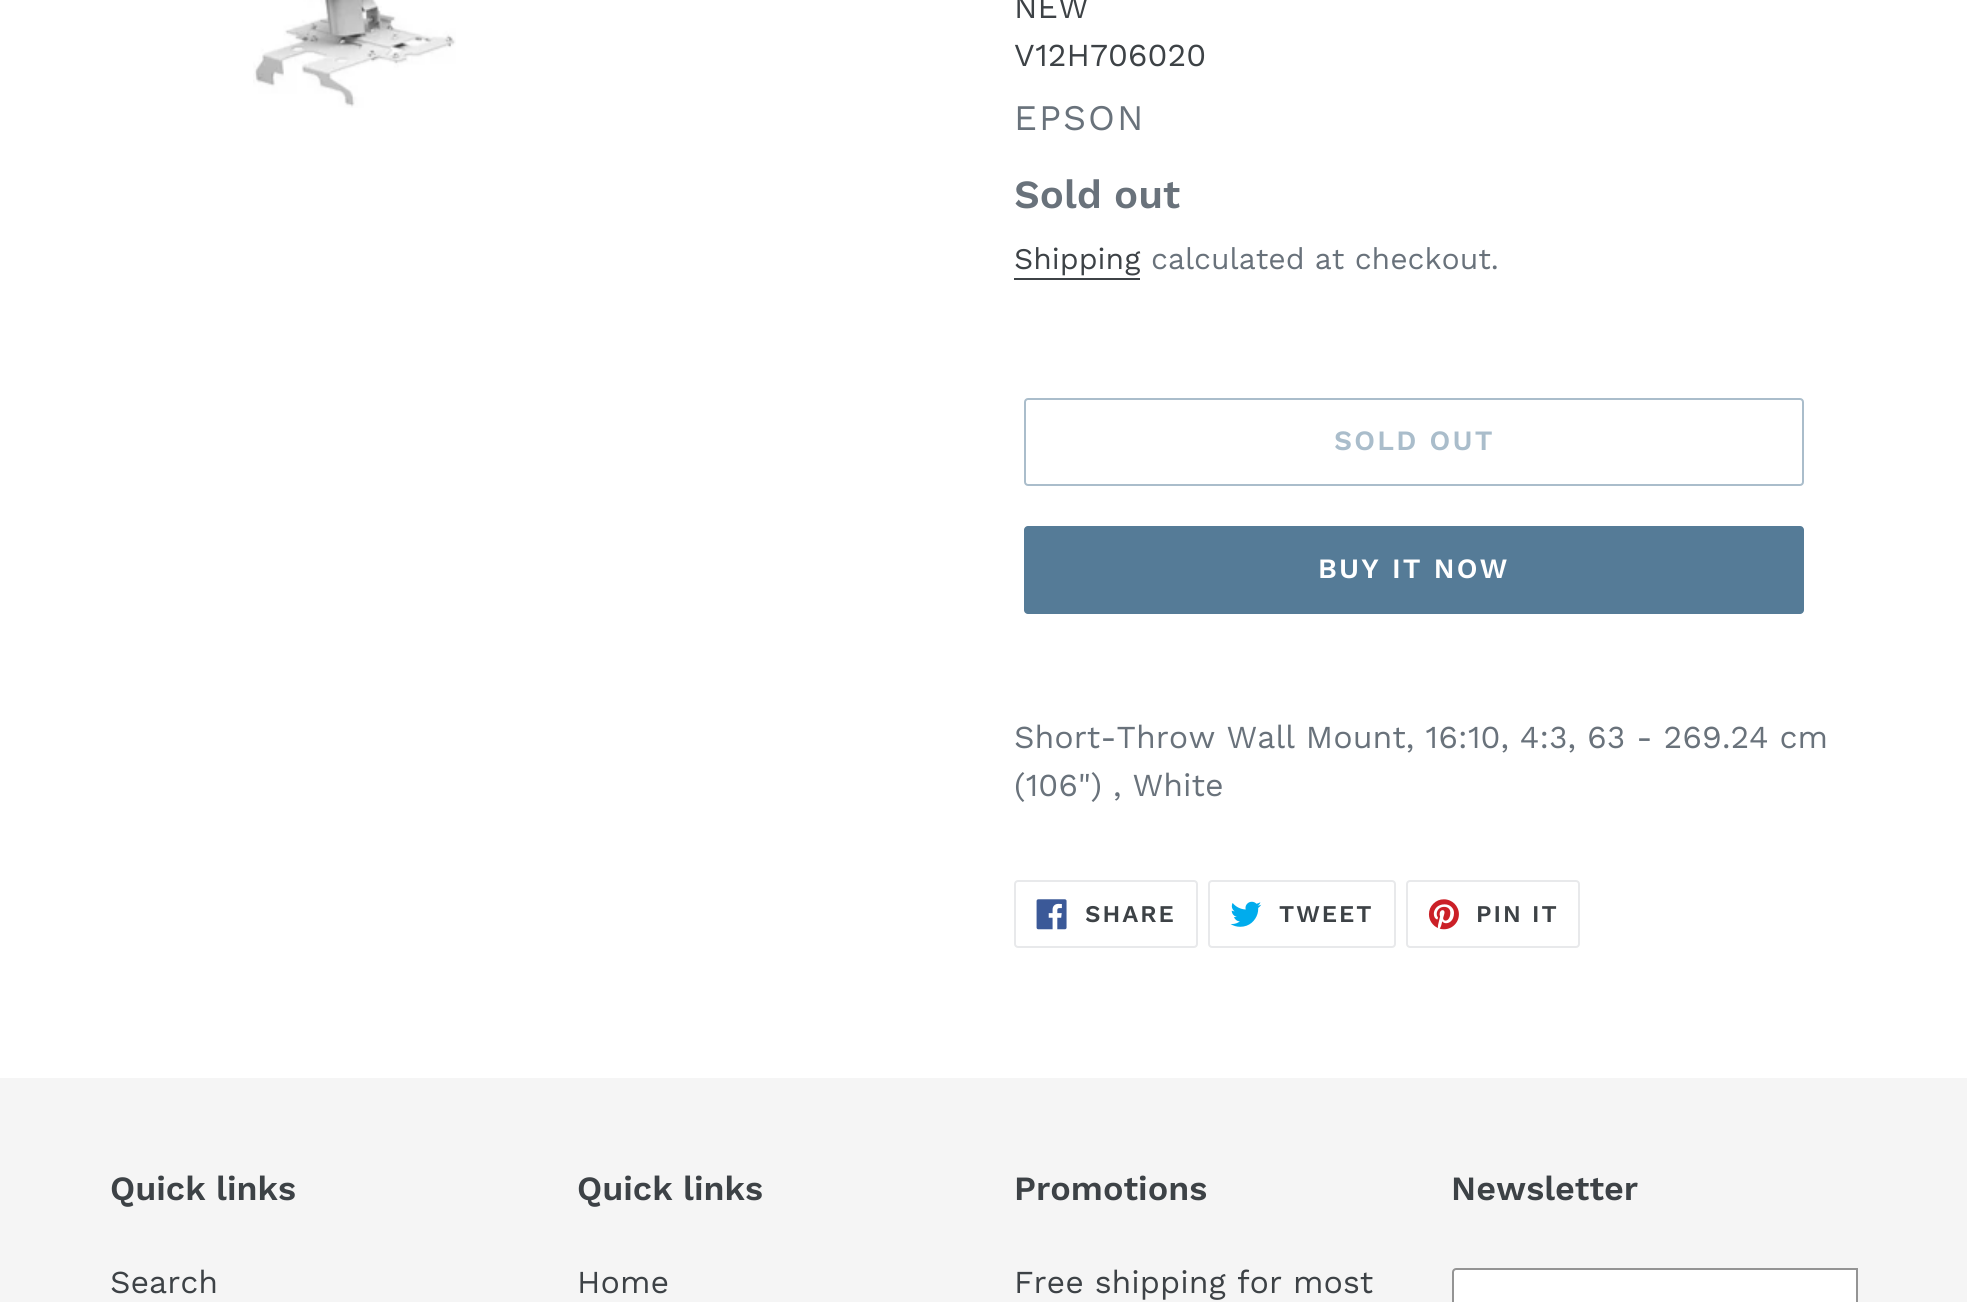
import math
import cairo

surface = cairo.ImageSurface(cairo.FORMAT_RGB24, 1967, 1302)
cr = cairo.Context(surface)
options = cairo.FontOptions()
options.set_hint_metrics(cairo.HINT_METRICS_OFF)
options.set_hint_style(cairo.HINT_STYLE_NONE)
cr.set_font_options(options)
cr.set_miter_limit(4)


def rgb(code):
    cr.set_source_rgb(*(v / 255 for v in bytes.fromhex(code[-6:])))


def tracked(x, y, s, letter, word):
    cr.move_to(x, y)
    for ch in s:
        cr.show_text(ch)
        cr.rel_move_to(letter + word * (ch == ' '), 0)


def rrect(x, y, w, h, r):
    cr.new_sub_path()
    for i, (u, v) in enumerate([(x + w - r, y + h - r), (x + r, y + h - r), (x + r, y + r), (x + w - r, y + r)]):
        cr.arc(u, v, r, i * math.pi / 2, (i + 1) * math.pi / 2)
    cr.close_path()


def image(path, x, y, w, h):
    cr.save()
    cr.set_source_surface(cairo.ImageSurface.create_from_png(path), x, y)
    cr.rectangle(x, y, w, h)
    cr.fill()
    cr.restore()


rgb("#ffffff")
cr.paint()
image("img/1.png", 253, 0, 203, 108)
rgb("#3d4246")
cr.rectangle(1014, 278, 126, 2)
cr.fill()
rrect(1025, 399, 778, 86, 3)
rgb("#aabdcb")
cr.stroke()
rgb("#557b97")
rrect(1024, 526, 780, 88, 4)
cr.fill()
rrect(1015, 881, 182, 66, 3)
rgb("#e8e9eb")
cr.stroke()
image("img/2.png", 1036, 899, 31, 31)
rrect(1209, 881, 186, 66, 3)
cr.stroke()
image("img/3.png", 1230, 901, 32, 26)
rrect(1407, 881, 172, 66, 3)
cr.stroke()
image("img/4.png", 1428, 899, 31, 31)
rgb("#f5f5f5")
cr.rectangle(0, 1078, 1967, 224)
cr.fill()
rgb("#ffffff")
cr.new_path()
cr.move_to(1456, 1269)
cr.line_to(1857, 1269)
cr.line_to(1857, 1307)
cr.line_to(1456, 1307)
cr.curve_to(1454.5, 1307, 1453, 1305.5, 1453, 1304)
cr.line_to(1453, 1272)
cr.curve_to(1453, 1270.5, 1454.5, 1269, 1456, 1269)
cr.close_path()
cr.fill_preserve()
rgb("#949494")
cr.stroke()
cr.select_font_face("Work Sans")
cr.set_font_size(32)
rgb("#3d4246")
cr.move_to(1014, 18)
cr.show_text("NEW")
cr.move_to(1014, 66)
cr.show_text("V12H706020")
cr.set_font_size(36)
rgb("#69727b")
tracked(1014, 130, "EPSON", 2, 0)
cr.select_font_face("Work Sans SemiBold")
cr.set_font_size(40)
cr.move_to(1014, 208)
cr.show_text("Sold out")
cr.select_font_face("Work Sans")
cr.set_font_size(30)
rgb("#3d4246")
cr.move_to(1014, 269)
cr.show_text("Shipping")
rgb("#69727b")
cr.move_to(1151, 269)
cr.show_text("calculated at checkout.")
cr.select_font_face("Work Sans SemiBold")
cr.set_font_size(28)
rgb("#aabdcb")
tracked(1334, 450, "SOLD OUT", 2.25, 0)
rgb("#ffffff")
tracked(1318, 578, "BUY IT NOW", 2.25, 0)
cr.select_font_face("Work Sans")
cr.set_font_size(32)
rgb("#69727b")
cr.move_to(1014, 748)
cr.show_text("Short-Throw Wall Mount, 16:10, 4:3, 63 - 269.24 cm")
cr.move_to(1014, 796)
cr.show_text("(106\") , White")
cr.select_font_face("Work Sans SemiBold")
cr.set_font_size(24)
rgb("#3d4246")
for x, y, s in [
    (1085, 922, "SHARE"),
    (1279, 922, "TWEET"),
    (1476, 922, "PIN IT"),
]:
    tracked(x, y, s, 2, 0)
cr.set_font_size(34)
cr.move_to(110, 1200)
cr.show_text("Quick links")
cr.select_font_face("Work Sans")
cr.set_font_size(32)
cr.move_to(110, 1293)
cr.show_text("Search")
cr.select_font_face("Work Sans SemiBold")
cr.set_font_size(34)
cr.move_to(577, 1200)
cr.show_text("Quick links")
cr.select_font_face("Work Sans")
cr.set_font_size(32)
cr.move_to(577, 1293)
cr.show_text("Home")
cr.select_font_face("Work Sans SemiBold")
cr.set_font_size(34)
cr.move_to(1014, 1200)
cr.show_text("Promotions")
cr.select_font_face("Work Sans")
cr.set_font_size(32)
cr.move_to(1014, 1293)
cr.show_text("Free shipping for most")
cr.select_font_face("Work Sans SemiBold")
cr.set_font_size(34)
cr.move_to(1451, 1200)
cr.show_text("Newsletter")
surface.write_to_png("page.png")
